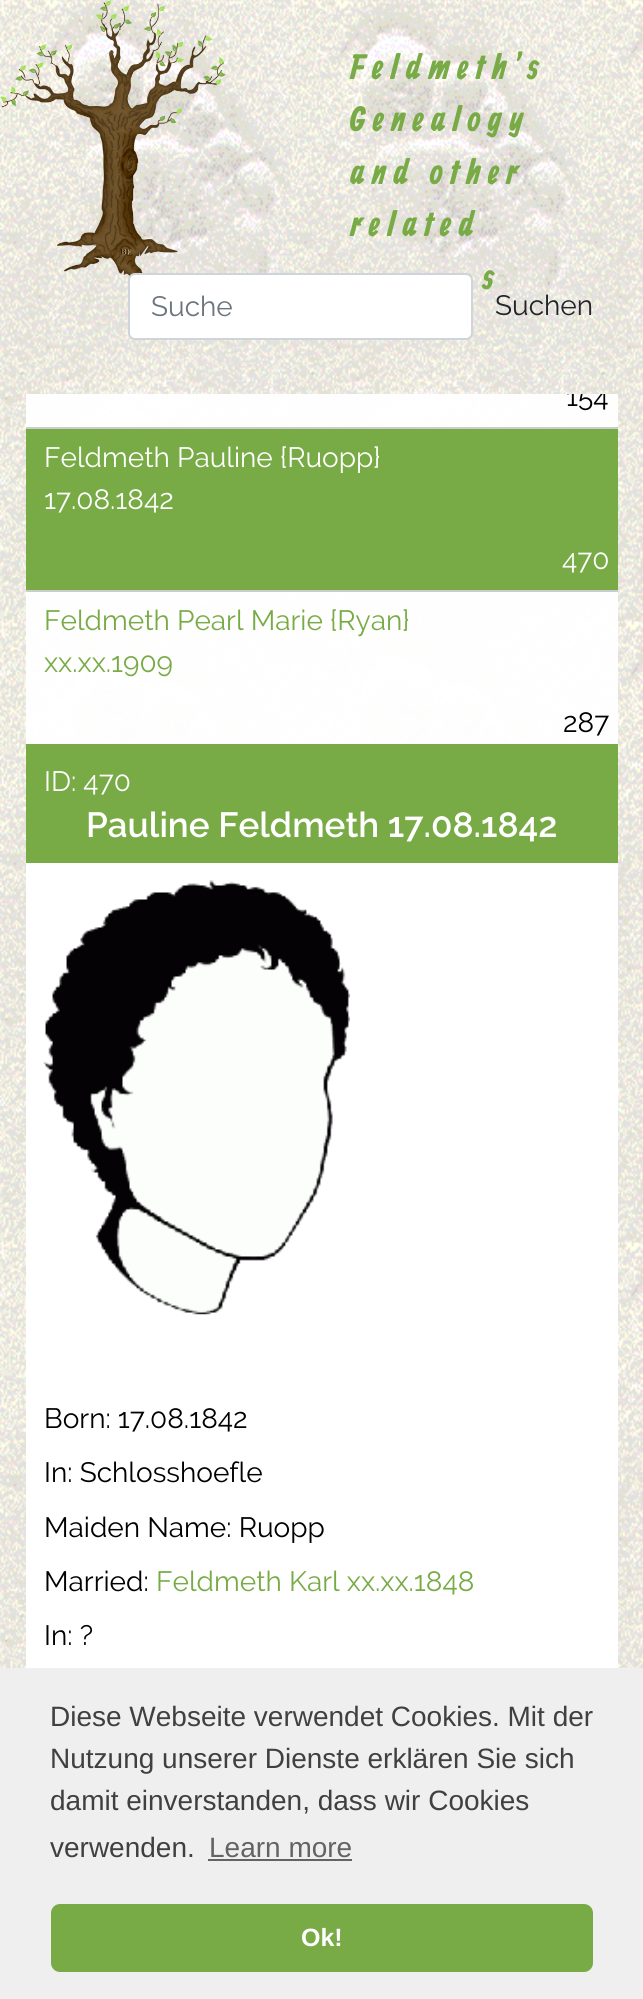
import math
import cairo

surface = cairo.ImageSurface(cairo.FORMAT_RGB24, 643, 1999)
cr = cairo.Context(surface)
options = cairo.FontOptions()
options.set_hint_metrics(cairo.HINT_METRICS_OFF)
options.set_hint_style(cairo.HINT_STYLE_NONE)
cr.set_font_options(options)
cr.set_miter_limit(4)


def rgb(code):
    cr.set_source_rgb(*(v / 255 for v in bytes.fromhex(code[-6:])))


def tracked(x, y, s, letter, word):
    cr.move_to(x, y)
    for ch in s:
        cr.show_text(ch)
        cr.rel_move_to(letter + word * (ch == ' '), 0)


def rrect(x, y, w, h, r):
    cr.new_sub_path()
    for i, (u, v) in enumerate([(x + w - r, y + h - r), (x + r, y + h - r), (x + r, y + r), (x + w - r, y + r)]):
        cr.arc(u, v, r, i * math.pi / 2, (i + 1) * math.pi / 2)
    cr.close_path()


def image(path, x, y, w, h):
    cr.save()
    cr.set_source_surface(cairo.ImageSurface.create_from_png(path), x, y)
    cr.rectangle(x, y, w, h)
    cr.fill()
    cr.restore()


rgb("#ffffff")
cr.paint()
image("img/1.png", 0, 0, 643, 1668)
image("img/2.png", 0, 0, 226, 277)
rgb("#ffffff")
rrect(129, 274, 343, 65, 6)
cr.fill_preserve()
rgb("#ced4da")
cr.stroke()
cr.set_source_rgba(1, 1, 1, 0.8)
cr.rectangle(26, 394, 592, 350)
cr.fill()
cr.rectangle(26, 394, 592, 33)
cr.fill()
rgb("#78ab46")
cr.rectangle(26, 429, 592, 161)
cr.fill()
rgb("#cccccc")
cr.rectangle(26, 427, 592, 2)
cr.fill()
cr.set_source_rgba(1, 1, 1, 0.8)
cr.rectangle(26, 592, 592, 152)
cr.fill()
rgb("#cccccc")
cr.rectangle(26, 590, 592, 2)
cr.fill()
rgb("#78ab46")
cr.rectangle(26, 744, 592, 119)
cr.fill()
rgb("#ffffff")
cr.rectangle(26, 863, 592, 805)
cr.fill()
image("img/3.png", 43, 880, 307, 435)
rgb("#efefef")
cr.rectangle(0, 1668, 643, 331)
cr.fill()
rgb("#636363")
cr.rectangle(208, 1859, 144, 2)
cr.fill()
rgb("#78ab46")
rrect(51, 1904, 542, 68, 9)
cr.fill()
cr.select_font_face("Allan", cairo.FONT_SLANT_NORMAL, cairo.FONT_WEIGHT_BOLD)
cr.set_font_size(35)
for x, y, s in [
    (350, 79, "Feldmeth's"),
    (350, 131, "Genealogy"),
    (350, 184, "and other"),
    (350, 236, "related"),
    (482, 289, "s"),
]:
    tracked(x, y, s, 7, 0)
cr.select_font_face("Raleway")
cr.set_font_size(28)
rgb("#6c757d")
cr.move_to(151, 316)
cr.show_text("Suche")
rgb("#212529")
cr.move_to(495, 315)
cr.show_text("Suchen")
cr.save()
cr.rectangle(26, 394, 592, 350)
cr.clip()
rgb("#000000")
cr.move_to(566, 406)
cr.show_text("154")
cr.restore()
rgb("#ffffff")
for x, y, s in [
    (44, 467, "Feldmeth Pauline {Ruopp}"),
    (44, 509, "17.08.1842"),
    (562, 569, "470"),
]:
    cr.move_to(x, y)
    cr.show_text(s)
rgb("#78ab46")
cr.move_to(44, 630)
cr.show_text("Feldmeth Pearl Marie {Ryan}")
cr.move_to(44, 672)
cr.show_text("xx.xx.1909")
rgb("#000000")
cr.move_to(563, 732)
cr.show_text("287")
rgb("#ffffff")
cr.move_to(44, 791)
cr.show_text("ID: 470")
cr.select_font_face("Raleway SemiBold")
cr.set_font_size(35)
cr.move_to(86, 837)
cr.show_text("Pauline Feldmeth 17.08.1842")
cr.select_font_face("Raleway")
cr.set_font_size(28)
rgb("#000000")
for x, y, s in [
    (44, 1428, "Born: 17.08.1842"),
    (44, 1482, "In: Schlosshoefle"),
    (44, 1537, "Maiden Name: Ruopp"),
    (44, 1591, "Married:"),
]:
    cr.move_to(x, y)
    cr.show_text(s)
rgb("#78ab46")
cr.move_to(156, 1591)
cr.show_text("Feldmeth Karl xx.xx.1848")
rgb("#000000")
cr.move_to(44, 1645)
cr.show_text("In: ?")
cr.select_font_face("Liberation Sans")
rgb("#404040")
for x, y, s in [
    (50, 1726, "Diese Webseite verwendet Cookies. Mit der"),
    (50, 1768, "Nutzung unserer Dienste erklären Sie sich"),
    (50, 1810, "damit einverstanden, dass wir Cookies"),
    (50, 1857, "verwenden."),
]:
    cr.move_to(x, y)
    cr.show_text(s)
rgb("#636363")
cr.move_to(209, 1857)
cr.show_text("Learn more")
cr.select_font_face("Liberation Sans", cairo.FONT_SLANT_NORMAL, cairo.FONT_WEIGHT_BOLD)
cr.set_font_size(25)
rgb("#ffffff")
cr.move_to(301, 1946)
cr.show_text("Ok!")
surface.write_to_png("page.png")
